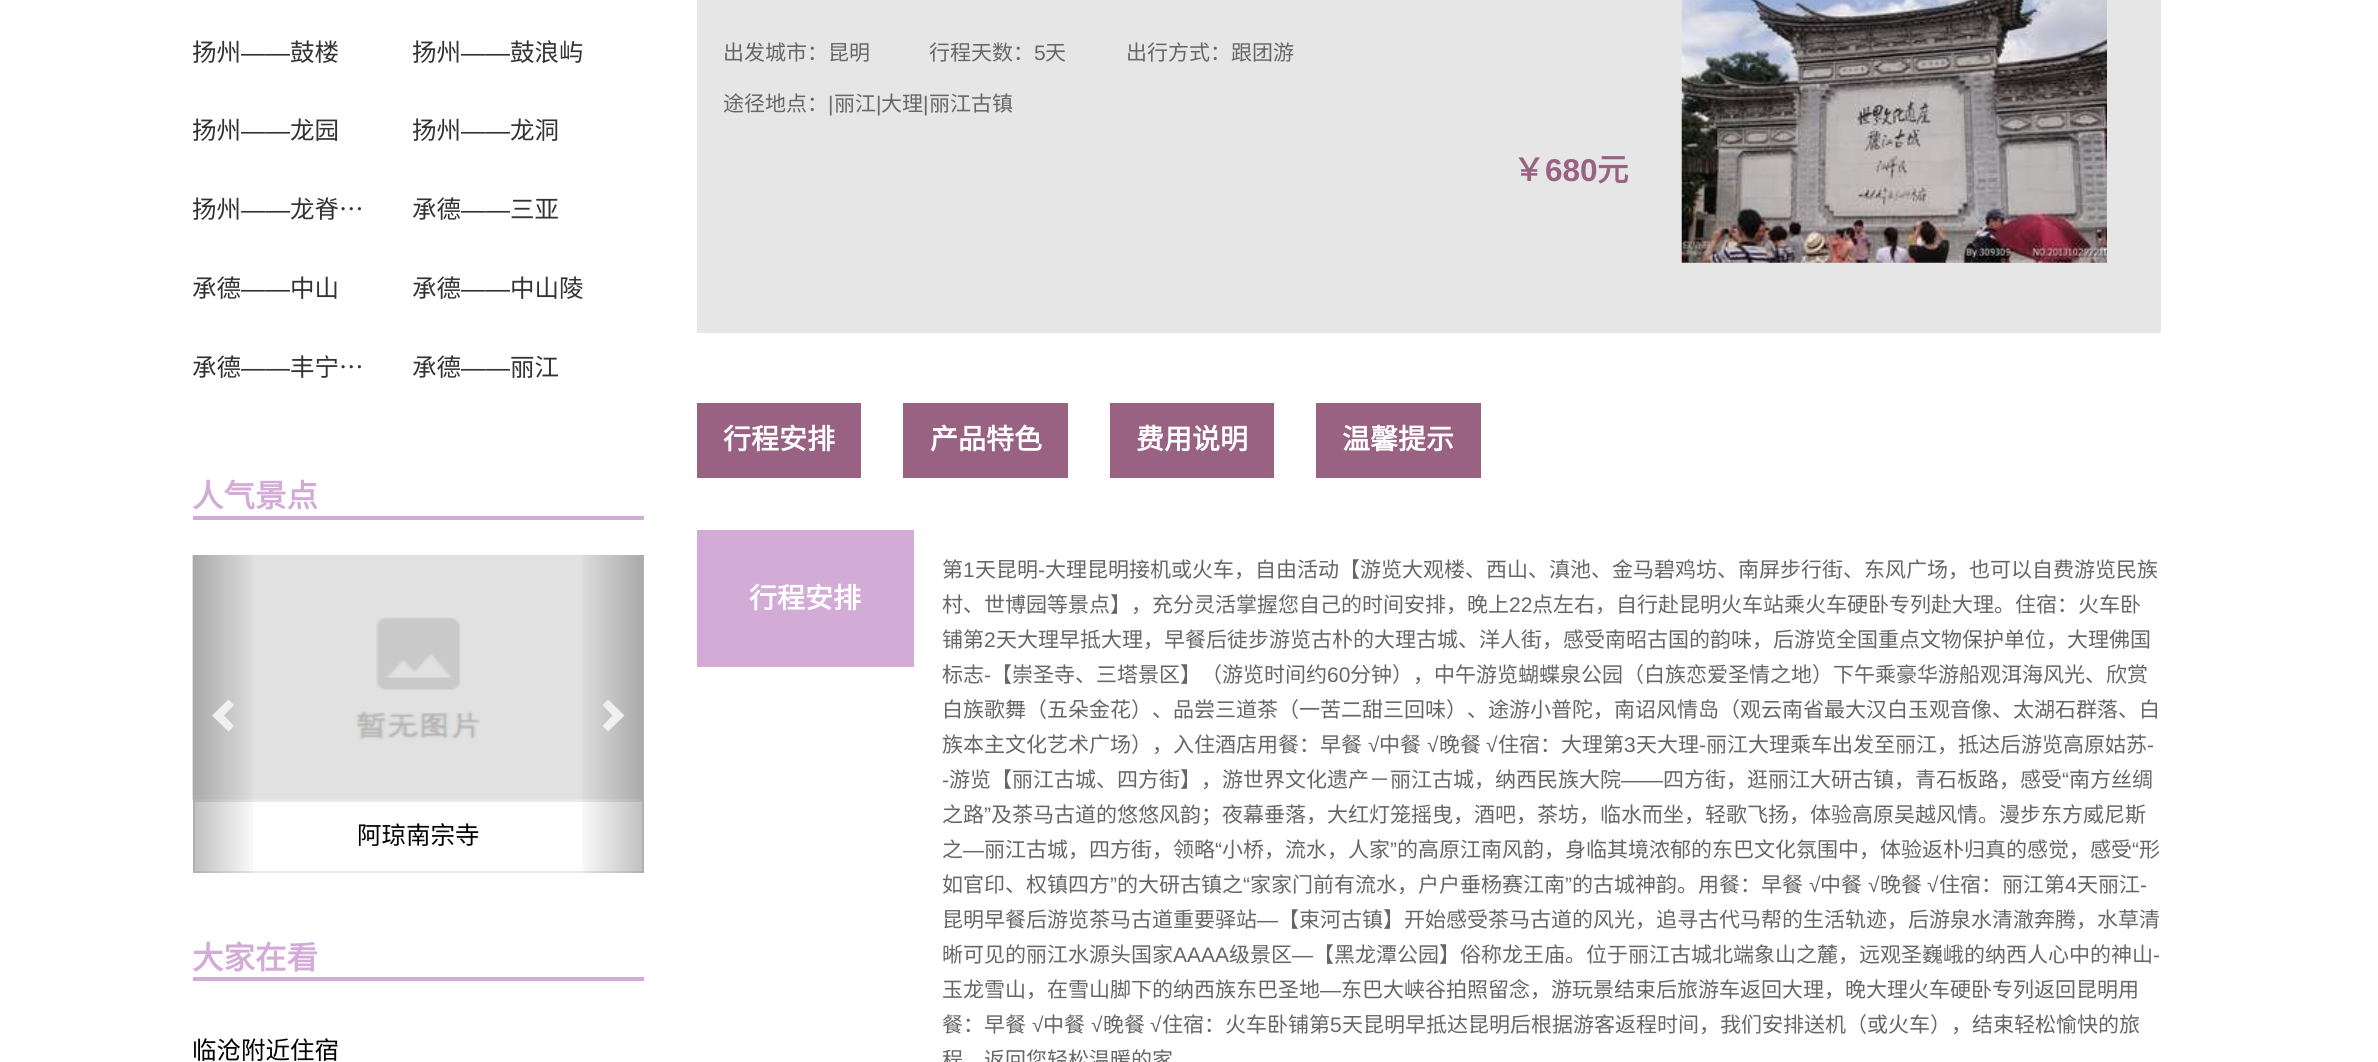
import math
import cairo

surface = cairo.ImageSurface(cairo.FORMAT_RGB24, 2378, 1062)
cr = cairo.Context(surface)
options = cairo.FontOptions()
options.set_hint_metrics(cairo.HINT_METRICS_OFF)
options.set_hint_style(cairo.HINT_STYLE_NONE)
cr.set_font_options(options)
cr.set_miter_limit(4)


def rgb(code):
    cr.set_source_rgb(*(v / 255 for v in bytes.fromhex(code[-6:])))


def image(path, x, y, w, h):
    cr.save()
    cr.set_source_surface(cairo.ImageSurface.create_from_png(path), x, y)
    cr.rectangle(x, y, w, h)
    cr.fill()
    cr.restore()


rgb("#ffffff")
cr.paint()
rgb("#d2abd7")
cr.rectangle(193, 516, 451, 4)
cr.fill()
image("img/1.png", 192, 555, 452, 245)
cr.rectangle(194, 801, 449, 71)
rgb("#eae8e8")
cr.stroke()
gradient = cairo.LinearGradient(193, 714, 259, 714)
gradient.add_color_stop_rgba(0, 0, 0, 0, 0.25)
gradient.add_color_stop_rgba(1, 0, 0, 0, 0)
cr.set_source(gradient)
cr.rectangle(193, 555, 60, 318)
cr.fill()
rgb("#f0f0f0")
cr.new_path()
cr.move_to(234, 705)
cr.line_to(224, 715.5)
cr.line_to(234, 726)
cr.line_to(228.5, 731.5)
cr.line_to(212, 715.5)
cr.line_to(228.5, 699.5)
cr.close_path()
cr.fill()
gradient = cairo.LinearGradient(576, 714, 644, 714)
gradient.add_color_stop_rgba(0, 0, 0, 0, 0)
gradient.add_color_stop_rgba(1, 0, 0, 0, 0.25)
cr.set_source(gradient)
cr.rectangle(582, 555, 62, 318)
cr.fill()
rgb("#f0f0f0")
cr.new_path()
cr.move_to(624.5, 715.5)
cr.line_to(608, 731.5)
cr.line_to(602.5, 726)
cr.line_to(612.5, 715.5)
cr.line_to(602.5, 705)
cr.line_to(608, 699.5)
cr.close_path()
cr.fill()
rgb("#d2abd7")
cr.rectangle(193, 977, 451, 4)
cr.fill()
rgb("#e7e6e6")
cr.rectangle(697, 0, 1464, 333)
cr.fill()
image("img/2.png", 1681, 0, 426, 263)
for x, y, w, h, color in [
    (697, 403, 164, 75, "#996283"),
    (903, 403, 165, 75, "#996283"),
    (1110, 403, 164, 75, "#996283"),
    (1316, 403, 165, 75, "#996283"),
    (697, 530, 217, 137, "#d2abd7"),
]:
    rgb(color)
    cr.rectangle(x, y, w, h)
    cr.fill()
cr.save()
cr.rectangle(193, 35, 175, 35)
cr.clip()
cr.select_font_face("Noto Sans CJK SC")
cr.set_font_size(24.5)
rgb("#333333")
cr.move_to(192, 61)
cr.show_text("扬州")
cr.restore()
cr.select_font_face("Liberation Sans")
cr.set_font_size(24.5)
rgb("#333333")
cr.move_to(241, 61)
cr.show_text("——")
cr.select_font_face("Noto Sans CJK SC")
cr.move_to(290, 61)
cr.show_text("鼓楼")
cr.move_to(412, 61)
cr.show_text("扬州")
cr.select_font_face("Liberation Sans")
cr.move_to(461, 61)
cr.show_text("——")
cr.select_font_face("Noto Sans CJK SC")
cr.move_to(510, 61)
cr.show_text("鼓浪屿")
cr.save()
cr.rectangle(193, 114, 175, 35)
cr.clip()
cr.move_to(192, 139)
cr.show_text("扬州")
cr.restore()
cr.select_font_face("Liberation Sans")
cr.move_to(241, 139)
cr.show_text("——")
cr.select_font_face("Noto Sans CJK SC")
cr.move_to(290, 139)
cr.show_text("龙园")
cr.move_to(412, 139)
cr.show_text("扬州")
cr.select_font_face("Liberation Sans")
cr.move_to(461, 139)
cr.show_text("——")
cr.select_font_face("Noto Sans CJK SC")
cr.move_to(510, 139)
cr.show_text("龙洞")
cr.save()
cr.rectangle(193, 193, 175, 35)
cr.clip()
cr.move_to(192, 218)
cr.show_text("扬州")
cr.restore()
cr.select_font_face("Liberation Sans")
cr.move_to(241, 218)
cr.show_text("——")
cr.select_font_face("Noto Sans CJK SC")
cr.move_to(290, 218)
cr.show_text("龙脊…")
cr.move_to(412, 218)
cr.show_text("承德")
cr.select_font_face("Liberation Sans")
cr.move_to(461, 218)
cr.show_text("——")
cr.select_font_face("Noto Sans CJK SC")
cr.move_to(510, 218)
cr.show_text("三亚")
cr.move_to(192, 297)
cr.show_text("承德")
cr.select_font_face("Liberation Sans")
cr.move_to(241, 297)
cr.show_text("——")
cr.select_font_face("Noto Sans CJK SC")
cr.move_to(290, 297)
cr.show_text("中山")
cr.move_to(412, 297)
cr.show_text("承德")
cr.select_font_face("Liberation Sans")
cr.move_to(461, 297)
cr.show_text("——")
cr.select_font_face("Noto Sans CJK SC")
cr.move_to(510, 297)
cr.show_text("中山陵")
cr.move_to(192, 376)
cr.show_text("承德")
cr.select_font_face("Liberation Sans")
cr.move_to(241, 376)
cr.show_text("——")
cr.select_font_face("Noto Sans CJK SC")
cr.move_to(290, 376)
cr.show_text("丰宁…")
cr.move_to(412, 376)
cr.show_text("承德")
cr.select_font_face("Liberation Sans")
cr.move_to(461, 376)
cr.show_text("——")
cr.select_font_face("Noto Sans CJK SC")
cr.move_to(510, 376)
cr.show_text("丽江")
cr.select_font_face("Noto Sans CJK SC", cairo.FONT_SLANT_NORMAL, cairo.FONT_WEIGHT_BOLD)
cr.set_font_size(31.5)
rgb("#d2abd7")
cr.move_to(192, 507)
cr.show_text("人气景点")
cr.select_font_face("Noto Sans CJK SC")
cr.set_font_size(24.5)
rgb("#000000")
cr.move_to(357, 844)
cr.show_text("阿琼南宗寺")
cr.select_font_face("Noto Sans CJK SC", cairo.FONT_SLANT_NORMAL, cairo.FONT_WEIGHT_BOLD)
cr.set_font_size(31.5)
rgb("#d2abd7")
cr.move_to(192, 969)
cr.show_text("大家在看")
cr.select_font_face("Noto Sans CJK SC")
cr.set_font_size(24.5)
rgb("#000000")
cr.move_to(192, 1059)
cr.show_text("临沧附近住宿")
cr.set_font_size(21)
rgb("#666666")
cr.move_to(723, 60)
cr.show_text("出发城市：昆明")
cr.move_to(929, 60)
cr.show_text("行程天数：")
cr.select_font_face("Liberation Sans")
cr.move_to(1034, 60)
cr.show_text("5")
cr.select_font_face("Noto Sans CJK SC")
for x, y, s in [
    (1045, 60, "天"),
    (1126, 60, "出行方式：跟团游"),
    (723, 111, "途径地点："),
]:
    cr.move_to(x, y)
    cr.show_text(s)
cr.select_font_face("Liberation Sans")
cr.move_to(828, 111)
cr.show_text("|")
cr.select_font_face("Noto Sans CJK SC")
cr.move_to(834, 111)
cr.show_text("丽江")
cr.select_font_face("Liberation Sans")
cr.move_to(876, 111)
cr.show_text("|")
cr.select_font_face("Noto Sans CJK SC")
cr.move_to(881, 111)
cr.show_text("大理")
cr.select_font_face("Liberation Sans")
cr.move_to(923, 111)
cr.show_text("|")
cr.select_font_face("Noto Sans CJK SC")
cr.move_to(929, 111)
cr.show_text("丽江古镇")
cr.select_font_face("Noto Sans CJK SC", cairo.FONT_SLANT_NORMAL, cairo.FONT_WEIGHT_BOLD)
cr.set_font_size(31.5)
rgb("#996283")
cr.move_to(1513, 181)
cr.show_text("￥")
cr.select_font_face("Liberation Sans", cairo.FONT_SLANT_NORMAL, cairo.FONT_WEIGHT_BOLD)
cr.move_to(1545, 181)
cr.show_text("680")
cr.select_font_face("Noto Sans CJK SC", cairo.FONT_SLANT_NORMAL, cairo.FONT_WEIGHT_BOLD)
cr.move_to(1597, 181)
cr.show_text("元")
cr.set_font_size(28)
rgb("#ffffff")
for x, y, s in [
    (723, 449, "行程安排"),
    (930, 449, "产品特色"),
    (1136, 449, "费用说明"),
    (1342, 449, "温馨提示"),
    (749, 608, "行程安排"),
]:
    cr.move_to(x, y)
    cr.show_text(s)
cr.select_font_face("Noto Sans CJK SC")
cr.set_font_size(21)
rgb("#666666")
cr.move_to(942, 577)
cr.show_text("第")
cr.select_font_face("Liberation Sans")
cr.move_to(963, 577)
cr.show_text("1")
cr.select_font_face("Noto Sans CJK SC")
cr.move_to(975, 577)
cr.show_text("天昆明")
cr.select_font_face("Liberation Sans")
cr.move_to(1038, 577)
cr.show_text("-")
cr.select_font_face("Noto Sans CJK SC")
cr.move_to(1045, 577)
cr.show_text("大理昆明接机或火车，自由活动【游览大观楼、西山、滇池、金马碧鸡坊、南屏步行街、东风广场，也可以自费游览民族")
cr.move_to(942, 612)
cr.show_text("村、世博园等景点】，充分灵活掌握您自己的时间安排，晚上")
cr.select_font_face("Liberation Sans")
cr.move_to(1509, 612)
cr.show_text("22")
cr.select_font_face("Noto Sans CJK SC")
cr.move_to(1532, 612)
cr.show_text("点左右，自行赴昆明火车站乘火车硬卧专列赴大理。住宿：火车卧")
cr.move_to(942, 647)
cr.show_text("铺第")
cr.select_font_face("Liberation Sans")
cr.move_to(984, 647)
cr.show_text("2")
cr.select_font_face("Noto Sans CJK SC")
cr.move_to(996, 647)
cr.show_text("天大理早抵大理，早餐后徒步游览古朴的大理古城、洋人街，感受南昭古国的韵味，后游览全国重点文物保护单位，大理佛国")
cr.move_to(942, 682)
cr.show_text("标志")
cr.select_font_face("Liberation Sans")
cr.move_to(984, 682)
cr.show_text("-")
cr.select_font_face("Noto Sans CJK SC")
cr.move_to(991, 682)
cr.show_text("【崇圣寺、三塔景区】（游览时间约")
cr.select_font_face("Liberation Sans")
cr.move_to(1327, 682)
cr.show_text("60")
cr.select_font_face("Noto Sans CJK SC")
for x, y, s in [
    (1350, 682, "分钟），中午游览蝴蝶泉公园（白族恋爱圣情之地）下午乘豪华游船观洱海风光、欣赏"),
    (942, 717, "白族歌舞（五朵金花）、品尝三道茶（一苦二甜三回味）、途游小普陀，南诏风情岛（观云南省最大汉白玉观音像、太湖石群落、白"),
    (942, 752, "族本主文化艺术广场），入住酒店用餐：早餐"),
]:
    cr.move_to(x, y)
    cr.show_text(s)
cr.select_font_face("Liberation Sans")
cr.move_to(1368, 752)
cr.show_text("√")
cr.select_font_face("Noto Sans CJK SC")
cr.move_to(1379, 752)
cr.show_text("中餐")
cr.select_font_face("Liberation Sans")
cr.move_to(1427, 752)
cr.show_text("√")
cr.select_font_face("Noto Sans CJK SC")
cr.move_to(1439, 752)
cr.show_text("晚餐")
cr.select_font_face("Liberation Sans")
cr.move_to(1486, 752)
cr.show_text("√")
cr.select_font_face("Noto Sans CJK SC")
cr.move_to(1498, 752)
cr.show_text("住宿：大理第")
cr.select_font_face("Liberation Sans")
cr.move_to(1624, 752)
cr.show_text("3")
cr.select_font_face("Noto Sans CJK SC")
cr.move_to(1636, 752)
cr.show_text("天大理")
cr.select_font_face("Liberation Sans")
cr.move_to(1699, 752)
cr.show_text("-")
cr.select_font_face("Noto Sans CJK SC")
cr.move_to(1706, 752)
cr.show_text("丽江大理乘车出发至丽江，抵达后游览高原姑苏")
cr.select_font_face("Liberation Sans")
cr.move_to(2147, 752)
cr.show_text("-")
cr.select_font_face("Noto Sans CJK SC")
cr.move_to(949, 787)
cr.show_text("游览【丽江古城、四方街】，游世界文化遗产－丽江古城，纳西民族大院")
cr.move_to(1663, 787)
cr.show_text("四方街，逛丽江大研古镇，青石板路，感受")
cr.select_font_face("Liberation Sans")
cr.move_to(2062, 787)
cr.show_text("“")
cr.select_font_face("Noto Sans CJK SC")
cr.move_to(2069, 787)
cr.show_text("南方丝绸")
cr.select_font_face("Liberation Sans")
cr.move_to(942, 787)
cr.show_text("-")
cr.move_to(1621, 787)
cr.show_text("——")
cr.select_font_face("Noto Sans CJK SC")
cr.move_to(942, 822)
cr.show_text("之路")
cr.select_font_face("Liberation Sans")
cr.move_to(984, 822)
cr.show_text("”")
cr.select_font_face("Noto Sans CJK SC")
for x, y, s in [
    (991, 822, "及茶马古道的悠悠风韵；夜幕垂落，大红灯笼摇曳，酒吧，茶坊，临水而坐，轻歌飞扬，体验高原吴越风情。漫步东方威尼斯"),
    (942, 857, "之"),
    (984, 857, "丽江古城，四方街，领略"),
]:
    cr.move_to(x, y)
    cr.show_text(s)
cr.select_font_face("Liberation Sans")
cr.move_to(1215, 857)
cr.show_text("“")
cr.select_font_face("Noto Sans CJK SC")
cr.move_to(1222, 857)
cr.show_text("小桥，流水，人家")
cr.select_font_face("Liberation Sans")
cr.move_to(1390, 857)
cr.show_text("”")
cr.select_font_face("Noto Sans CJK SC")
cr.move_to(1397, 857)
cr.show_text("的高原江南风韵，身临其境浓郁的东巴文化氛围中，体验返朴归真的感觉，感受")
cr.select_font_face("Liberation Sans")
cr.move_to(2132, 857)
cr.show_text("“")
cr.select_font_face("Noto Sans CJK SC")
cr.move_to(2139, 857)
cr.show_text("形")
cr.select_font_face("Liberation Sans")
cr.move_to(963, 857)
cr.show_text("—")
cr.select_font_face("Noto Sans CJK SC")
cr.move_to(942, 892)
cr.show_text("如官印、权镇四方")
cr.select_font_face("Liberation Sans")
cr.move_to(1110, 892)
cr.show_text("”")
cr.select_font_face("Noto Sans CJK SC")
cr.move_to(1117, 892)
cr.show_text("的大研古镇之")
cr.select_font_face("Liberation Sans")
cr.move_to(1243, 892)
cr.show_text("“")
cr.select_font_face("Noto Sans CJK SC")
cr.move_to(1250, 892)
cr.show_text("家家门前有流水，户户垂杨赛江南")
cr.select_font_face("Liberation Sans")
cr.move_to(1565, 892)
cr.show_text("”")
cr.select_font_face("Noto Sans CJK SC")
cr.move_to(1572, 892)
cr.show_text("的古城神韵。用餐：早餐")
cr.select_font_face("Liberation Sans")
cr.move_to(1809, 892)
cr.show_text("√")
cr.select_font_face("Noto Sans CJK SC")
cr.move_to(1820, 892)
cr.show_text("中餐")
cr.select_font_face("Liberation Sans")
cr.move_to(1868, 892)
cr.show_text("√")
cr.select_font_face("Noto Sans CJK SC")
cr.move_to(1880, 892)
cr.show_text("晚餐")
cr.select_font_face("Liberation Sans")
cr.move_to(1927, 892)
cr.show_text("√")
cr.select_font_face("Noto Sans CJK SC")
cr.move_to(1939, 892)
cr.show_text("住宿：丽江第")
cr.select_font_face("Liberation Sans")
cr.move_to(2065, 892)
cr.show_text("4")
cr.select_font_face("Noto Sans CJK SC")
cr.move_to(2077, 892)
cr.show_text("天丽江")
cr.select_font_face("Liberation Sans")
cr.move_to(2140, 892)
cr.show_text("-")
cr.select_font_face("Noto Sans CJK SC")
cr.move_to(942, 927)
cr.show_text("昆明早餐后游览茶马古道重要驿站")
cr.select_font_face("Liberation Sans")
cr.move_to(1257, 927)
cr.show_text("—")
cr.select_font_face("Noto Sans CJK SC")
cr.move_to(1278, 927)
cr.show_text("【束河古镇】开始感受茶马古道的风光，追寻古代马帮的生活轨迹，后游泉水清澈奔腾，水草清")
cr.move_to(942, 962)
cr.show_text("晰可见的丽江水源头国家")
cr.select_font_face("Liberation Sans")
cr.move_to(1173, 962)
cr.show_text("AAAA")
cr.select_font_face("Noto Sans CJK SC")
cr.move_to(1229, 962)
cr.show_text("级景区")
cr.select_font_face("Liberation Sans")
cr.move_to(1292, 962)
cr.show_text("—")
cr.select_font_face("Noto Sans CJK SC")
cr.move_to(1313, 962)
cr.show_text("【黑龙潭公园】俗称龙王庙。位于丽江古城北端象山之麓，远观圣巍峨的纳西人心中的神山")
cr.select_font_face("Liberation Sans")
cr.move_to(2153, 962)
cr.show_text("-")
cr.select_font_face("Noto Sans CJK SC")
cr.move_to(942, 997)
cr.show_text("玉龙雪山，在雪山脚下的纳西族东巴圣地")
cr.select_font_face("Liberation Sans")
cr.move_to(1320, 997)
cr.show_text("—")
cr.select_font_face("Noto Sans CJK SC")
cr.move_to(1341, 997)
cr.show_text("东巴大峡谷拍照留念，游玩景结束后旅游车返回大理，晚大理火车硬卧专列返回昆明用")
cr.move_to(942, 1032)
cr.show_text("餐：早餐")
cr.select_font_face("Liberation Sans")
cr.move_to(1032, 1032)
cr.show_text("√")
cr.select_font_face("Noto Sans CJK SC")
cr.move_to(1043, 1032)
cr.show_text("中餐")
cr.select_font_face("Liberation Sans")
cr.move_to(1091, 1032)
cr.show_text("√")
cr.select_font_face("Noto Sans CJK SC")
cr.move_to(1103, 1032)
cr.show_text("晚餐")
cr.select_font_face("Liberation Sans")
cr.move_to(1150, 1032)
cr.show_text("√")
cr.select_font_face("Noto Sans CJK SC")
cr.move_to(1162, 1032)
cr.show_text("住宿：火车卧铺第")
cr.select_font_face("Liberation Sans")
cr.move_to(1330, 1032)
cr.show_text("5")
cr.select_font_face("Noto Sans CJK SC")
cr.move_to(1342, 1032)
cr.show_text("天昆明早抵达昆明后根据游客返程时间，我们安排送机（或火车），结束轻松愉快的旅")
cr.move_to(942, 1067)
cr.show_text("程，返回您轻松温暖的家")
surface.write_to_png("page.png")
